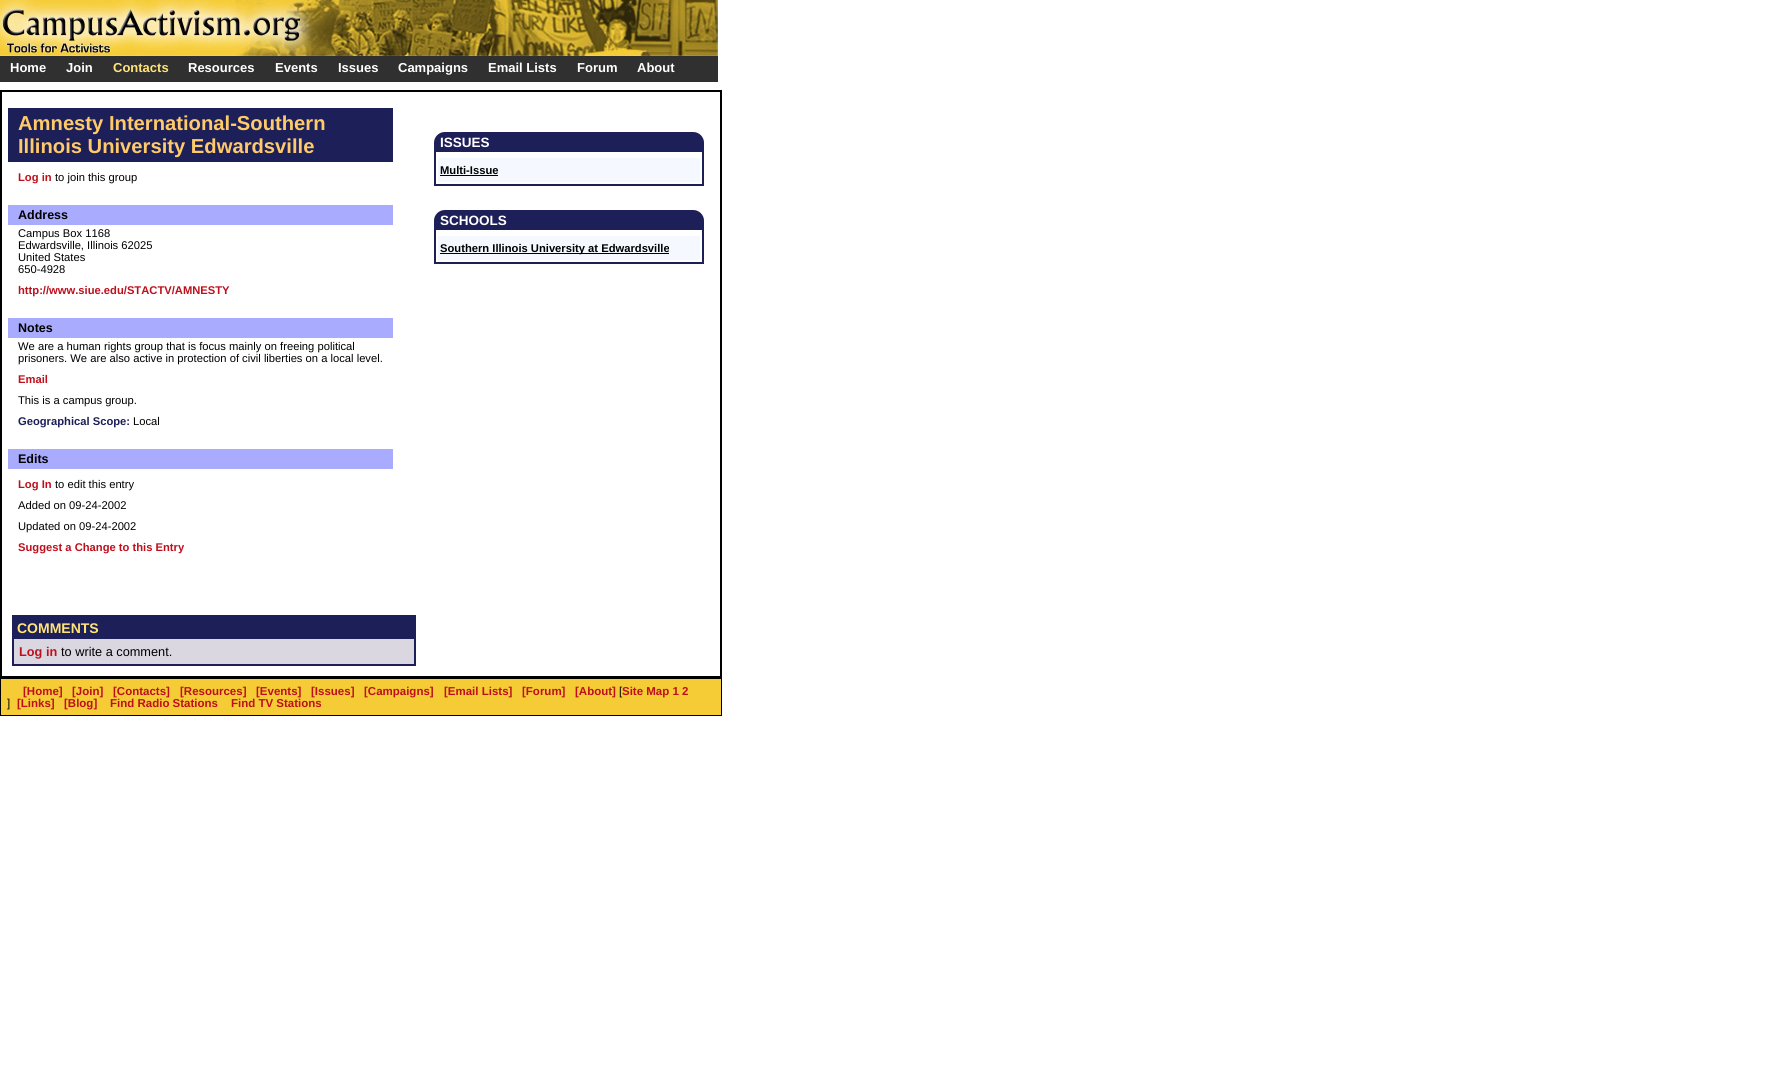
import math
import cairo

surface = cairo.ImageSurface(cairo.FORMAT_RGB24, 1778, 1065)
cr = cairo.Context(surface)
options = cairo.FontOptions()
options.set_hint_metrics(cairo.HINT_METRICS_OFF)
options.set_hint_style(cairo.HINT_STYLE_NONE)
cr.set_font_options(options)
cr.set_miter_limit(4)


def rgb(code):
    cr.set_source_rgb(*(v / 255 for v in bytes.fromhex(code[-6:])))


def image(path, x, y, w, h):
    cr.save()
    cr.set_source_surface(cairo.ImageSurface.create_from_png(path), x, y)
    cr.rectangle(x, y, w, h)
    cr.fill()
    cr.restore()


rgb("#ffffff")
cr.paint()
image("img/1.png", 0, 0, 718, 56)
rgb("#303030")
cr.rectangle(0, 56, 718, 26)
cr.fill()
cr.rectangle(1, 91, 720, 586)
rgb("#000000")
cr.stroke()
for x, y, w, h, color in [
    (8, 108, 385, 54, "#1d1f59"),
    (8, 205, 385, 20, "#a9abfe"),
    (8, 318, 385, 20, "#a9abfe"),
    (8, 449, 385, 20, "#a9abfe"),
]:
    rgb(color)
    cr.rectangle(x, y, w, h)
    cr.fill()
image("img/2.png", 434, 132, 270, 18)
cr.rectangle(435, 151, 268, 34)
rgb("#1d1f59")
cr.stroke()
rgb("#f5f9ff")
cr.rectangle(438, 158, 262, 24)
cr.fill()
rgb("#000000")
cr.rectangle(440, 175, 58, 1)
cr.fill()
image("img/2.png", 434, 210, 270, 18)
cr.rectangle(435, 229, 268, 34)
rgb("#1d1f59")
cr.stroke()
for x, y, w, h, color in [
    (438, 236, 262, 24, "#f5f9ff"),
    (440, 253, 229, 1, "#000000"),
    (12, 615, 404, 51, "#1d1f59"),
    (14, 639, 400, 25, "#dad7e1"),
]:
    rgb(color)
    cr.rectangle(x, y, w, h)
    cr.fill()
rgb("#f6cc36")
cr.rectangle(0.5, 678.5, 721, 37)
cr.fill_preserve()
rgb("#000000")
cr.set_line_width(1)
cr.stroke()
cr.select_font_face("Liberation Sans", cairo.FONT_SLANT_NORMAL, cairo.FONT_WEIGHT_BOLD)
cr.set_font_size(13)
rgb("#ffffff")
cr.move_to(10, 72)
cr.show_text("Home")
cr.move_to(66, 72)
cr.show_text("Join")
rgb("#ffe479")
cr.move_to(113, 72)
cr.show_text("Contacts")
rgb("#ffffff")
for x, y, s in [
    (188, 72, "Resources"),
    (275, 72, "Events"),
    (338, 72, "Issues"),
    (398, 72, "Campaigns"),
    (488, 72, "Email Lists"),
    (577, 72, "Forum"),
    (637, 72, "About"),
]:
    cr.move_to(x, y)
    cr.show_text(s)
cr.set_font_size(20.2)
rgb("#ffca69")
cr.move_to(18, 130)
cr.show_text("Amnesty International-Southern")
cr.move_to(18, 153)
cr.show_text("Illinois University Edwardsville")
cr.set_font_size(11.2)
rgb("#be0f1c")
cr.move_to(18, 181)
cr.show_text("Log in")
cr.select_font_face("Liberation Sans")
rgb("#000000")
cr.move_to(55, 181)
cr.show_text("to join this group")
cr.select_font_face("Liberation Sans", cairo.FONT_SLANT_NORMAL, cairo.FONT_WEIGHT_BOLD)
cr.set_font_size(12.5)
cr.move_to(18, 219)
cr.show_text("Address")
cr.select_font_face("Liberation Sans")
cr.set_font_size(11.2)
for x, y, s in [
    (18, 237, "Campus Box 1168"),
    (18, 249, "Edwardsville, Illinois 62025"),
    (18, 261, "United States"),
    (18, 273, "650-4928"),
]:
    cr.move_to(x, y)
    cr.show_text(s)
cr.select_font_face("Liberation Sans", cairo.FONT_SLANT_NORMAL, cairo.FONT_WEIGHT_BOLD)
rgb("#be0f1c")
cr.move_to(18, 294)
cr.show_text("http://www.siue.edu/STACTV/AMNESTY")
cr.set_font_size(12.5)
rgb("#000000")
cr.move_to(18, 332)
cr.show_text("Notes")
cr.select_font_face("Liberation Sans")
cr.set_font_size(11.2)
cr.move_to(18, 350)
cr.show_text("We are a human rights group that is focus mainly on freeing political")
cr.move_to(18, 362)
cr.show_text("prisoners. We are also active in protection of civil liberties on a local level.")
cr.select_font_face("Liberation Sans", cairo.FONT_SLANT_NORMAL, cairo.FONT_WEIGHT_BOLD)
rgb("#be0f1c")
cr.move_to(18, 383)
cr.show_text("Email")
cr.select_font_face("Liberation Sans")
rgb("#000000")
cr.move_to(18, 404)
cr.show_text("This is a campus group.")
cr.select_font_face("Liberation Sans", cairo.FONT_SLANT_NORMAL, cairo.FONT_WEIGHT_BOLD)
rgb("#1d1f59")
cr.move_to(18, 425)
cr.show_text("Geographical Scope:")
cr.select_font_face("Liberation Sans")
rgb("#000000")
cr.move_to(133, 425)
cr.show_text("Local")
cr.select_font_face("Liberation Sans", cairo.FONT_SLANT_NORMAL, cairo.FONT_WEIGHT_BOLD)
cr.set_font_size(12.5)
cr.move_to(18, 463)
cr.show_text("Edits")
cr.set_font_size(11.2)
rgb("#be0f1c")
cr.move_to(18, 488)
cr.show_text("Log In")
cr.select_font_face("Liberation Sans")
rgb("#000000")
for x, y, s in [
    (55, 488, "to edit this entry"),
    (18, 509, "Added on 09-24-2002"),
    (18, 530, "Updated on 09-24-2002"),
]:
    cr.move_to(x, y)
    cr.show_text(s)
cr.select_font_face("Liberation Sans", cairo.FONT_SLANT_NORMAL, cairo.FONT_WEIGHT_BOLD)
rgb("#be0f1c")
cr.move_to(18, 551)
cr.show_text("Suggest a Change to this Entry")
cr.set_font_size(13.5)
rgb("#ffffff")
cr.move_to(440, 147)
cr.show_text("ISSUES")
cr.set_font_size(11.2)
rgb("#000000")
cr.move_to(440, 174)
cr.show_text("Multi-Issue")
cr.set_font_size(13.5)
rgb("#ffffff")
cr.move_to(440, 225)
cr.show_text("SCHOOLS")
cr.set_font_size(11.2)
rgb("#000000")
cr.move_to(440, 252)
cr.show_text("Southern Illinois University at Edwardsville")
cr.set_font_size(14)
rgb("#ffe479")
cr.move_to(17, 633)
cr.show_text("COMMENTS")
cr.set_font_size(12.75)
rgb("#be0f1c")
cr.move_to(19, 656)
cr.show_text("Log in")
cr.select_font_face("Liberation Sans")
rgb("#000000")
cr.move_to(61, 656)
cr.show_text("to write a comment.")
cr.select_font_face("Liberation Sans", cairo.FONT_SLANT_NORMAL, cairo.FONT_WEIGHT_BOLD)
cr.set_font_size(11.5)
rgb("#be0f1c")
for x, y, s in [
    (23, 695, "[Home]"),
    (72, 695, "[Join]"),
    (113, 695, "[Contacts]"),
    (180, 695, "[Resources]"),
    (256, 695, "[Events]"),
    (311, 695, "[Issues]"),
    (364, 695, "[Campaigns]"),
    (444, 695, "[Email Lists]"),
    (522, 695, "[Forum]"),
    (575, 695, "[About]"),
]:
    cr.move_to(x, y)
    cr.show_text(s)
cr.select_font_face("Liberation Sans")
rgb("#000000")
cr.move_to(619, 695)
cr.show_text("[")
cr.select_font_face("Liberation Sans", cairo.FONT_SLANT_NORMAL, cairo.FONT_WEIGHT_BOLD)
rgb("#be0f1c")
cr.move_to(622, 695)
cr.show_text("Site Map 1 2")
cr.select_font_face("Liberation Sans")
rgb("#000000")
cr.move_to(7, 707)
cr.show_text("]")
cr.select_font_face("Liberation Sans", cairo.FONT_SLANT_NORMAL, cairo.FONT_WEIGHT_BOLD)
rgb("#be0f1c")
for x, y, s in [
    (17, 707, "[Links]"),
    (64, 707, "[Blog]"),
    (110, 707, "Find Radio Stations"),
    (231, 707, "Find TV Stations"),
]:
    cr.move_to(x, y)
    cr.show_text(s)
surface.write_to_png("page.png")
